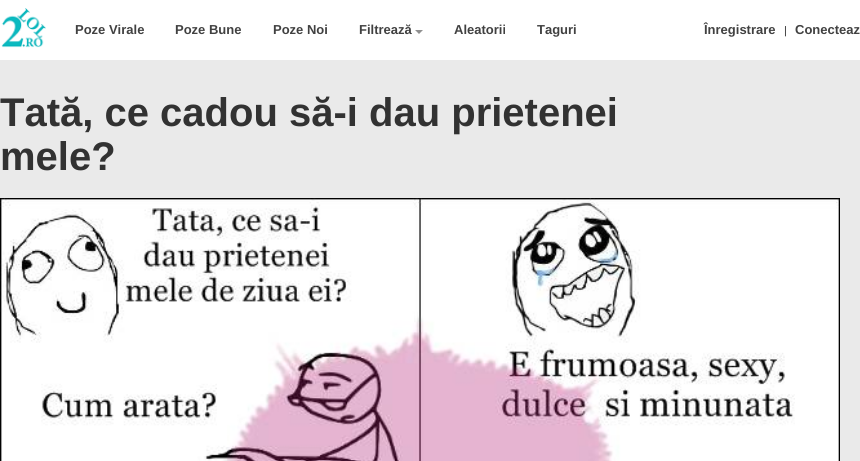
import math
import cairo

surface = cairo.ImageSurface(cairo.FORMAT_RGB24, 860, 461)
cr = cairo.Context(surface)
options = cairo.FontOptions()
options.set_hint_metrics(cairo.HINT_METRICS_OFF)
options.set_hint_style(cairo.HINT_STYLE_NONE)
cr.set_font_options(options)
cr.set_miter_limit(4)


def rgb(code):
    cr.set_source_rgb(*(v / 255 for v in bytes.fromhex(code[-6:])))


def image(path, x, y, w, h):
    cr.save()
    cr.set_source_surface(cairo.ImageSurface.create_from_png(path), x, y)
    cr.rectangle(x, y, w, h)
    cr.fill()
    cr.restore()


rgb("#eaeaea")
cr.paint()
rgb("#ffffff")
cr.rectangle(0, 0, 860, 60)
cr.fill()
image("img/1.png", 1, 8, 45, 40)
rgb("#909090")
cr.new_path()
cr.move_to(415, 30)
cr.line_to(423, 30)
cr.line_to(419, 34)
cr.close_path()
cr.fill()
image("img/2.png", 0, 198, 840, 263)
cr.select_font_face("Liberation Sans", cairo.FONT_SLANT_NORMAL, cairo.FONT_WEIGHT_BOLD)
cr.set_font_size(13)
rgb("#414141")
for x, y, s in [
    (75, 34, "Poze Virale"),
    (175, 34, "Poze Bune"),
    (273, 34, "Poze Noi"),
    (359, 34, "Filtrează"),
    (454, 34, "Aleatorii"),
    (537, 34, "Taguri"),
    (704, 34, "Înregistrare"),
]:
    cr.move_to(x, y)
    cr.show_text(s)
cr.select_font_face("Liberation Sans")
cr.set_font_size(11)
rgb("#323232")
cr.move_to(784, 34)
cr.show_text("|")
cr.select_font_face("Liberation Sans", cairo.FONT_SLANT_NORMAL, cairo.FONT_WEIGHT_BOLD)
cr.set_font_size(13)
rgb("#414141")
cr.move_to(795, 34)
cr.show_text("Conecteaz")
cr.set_font_size(40)
rgb("#323232")
cr.move_to(0, 126)
cr.show_text("Tată, ce cadou să-i dau prietenei")
cr.move_to(0, 170)
cr.show_text("mele?")
surface.write_to_png("page.png")
